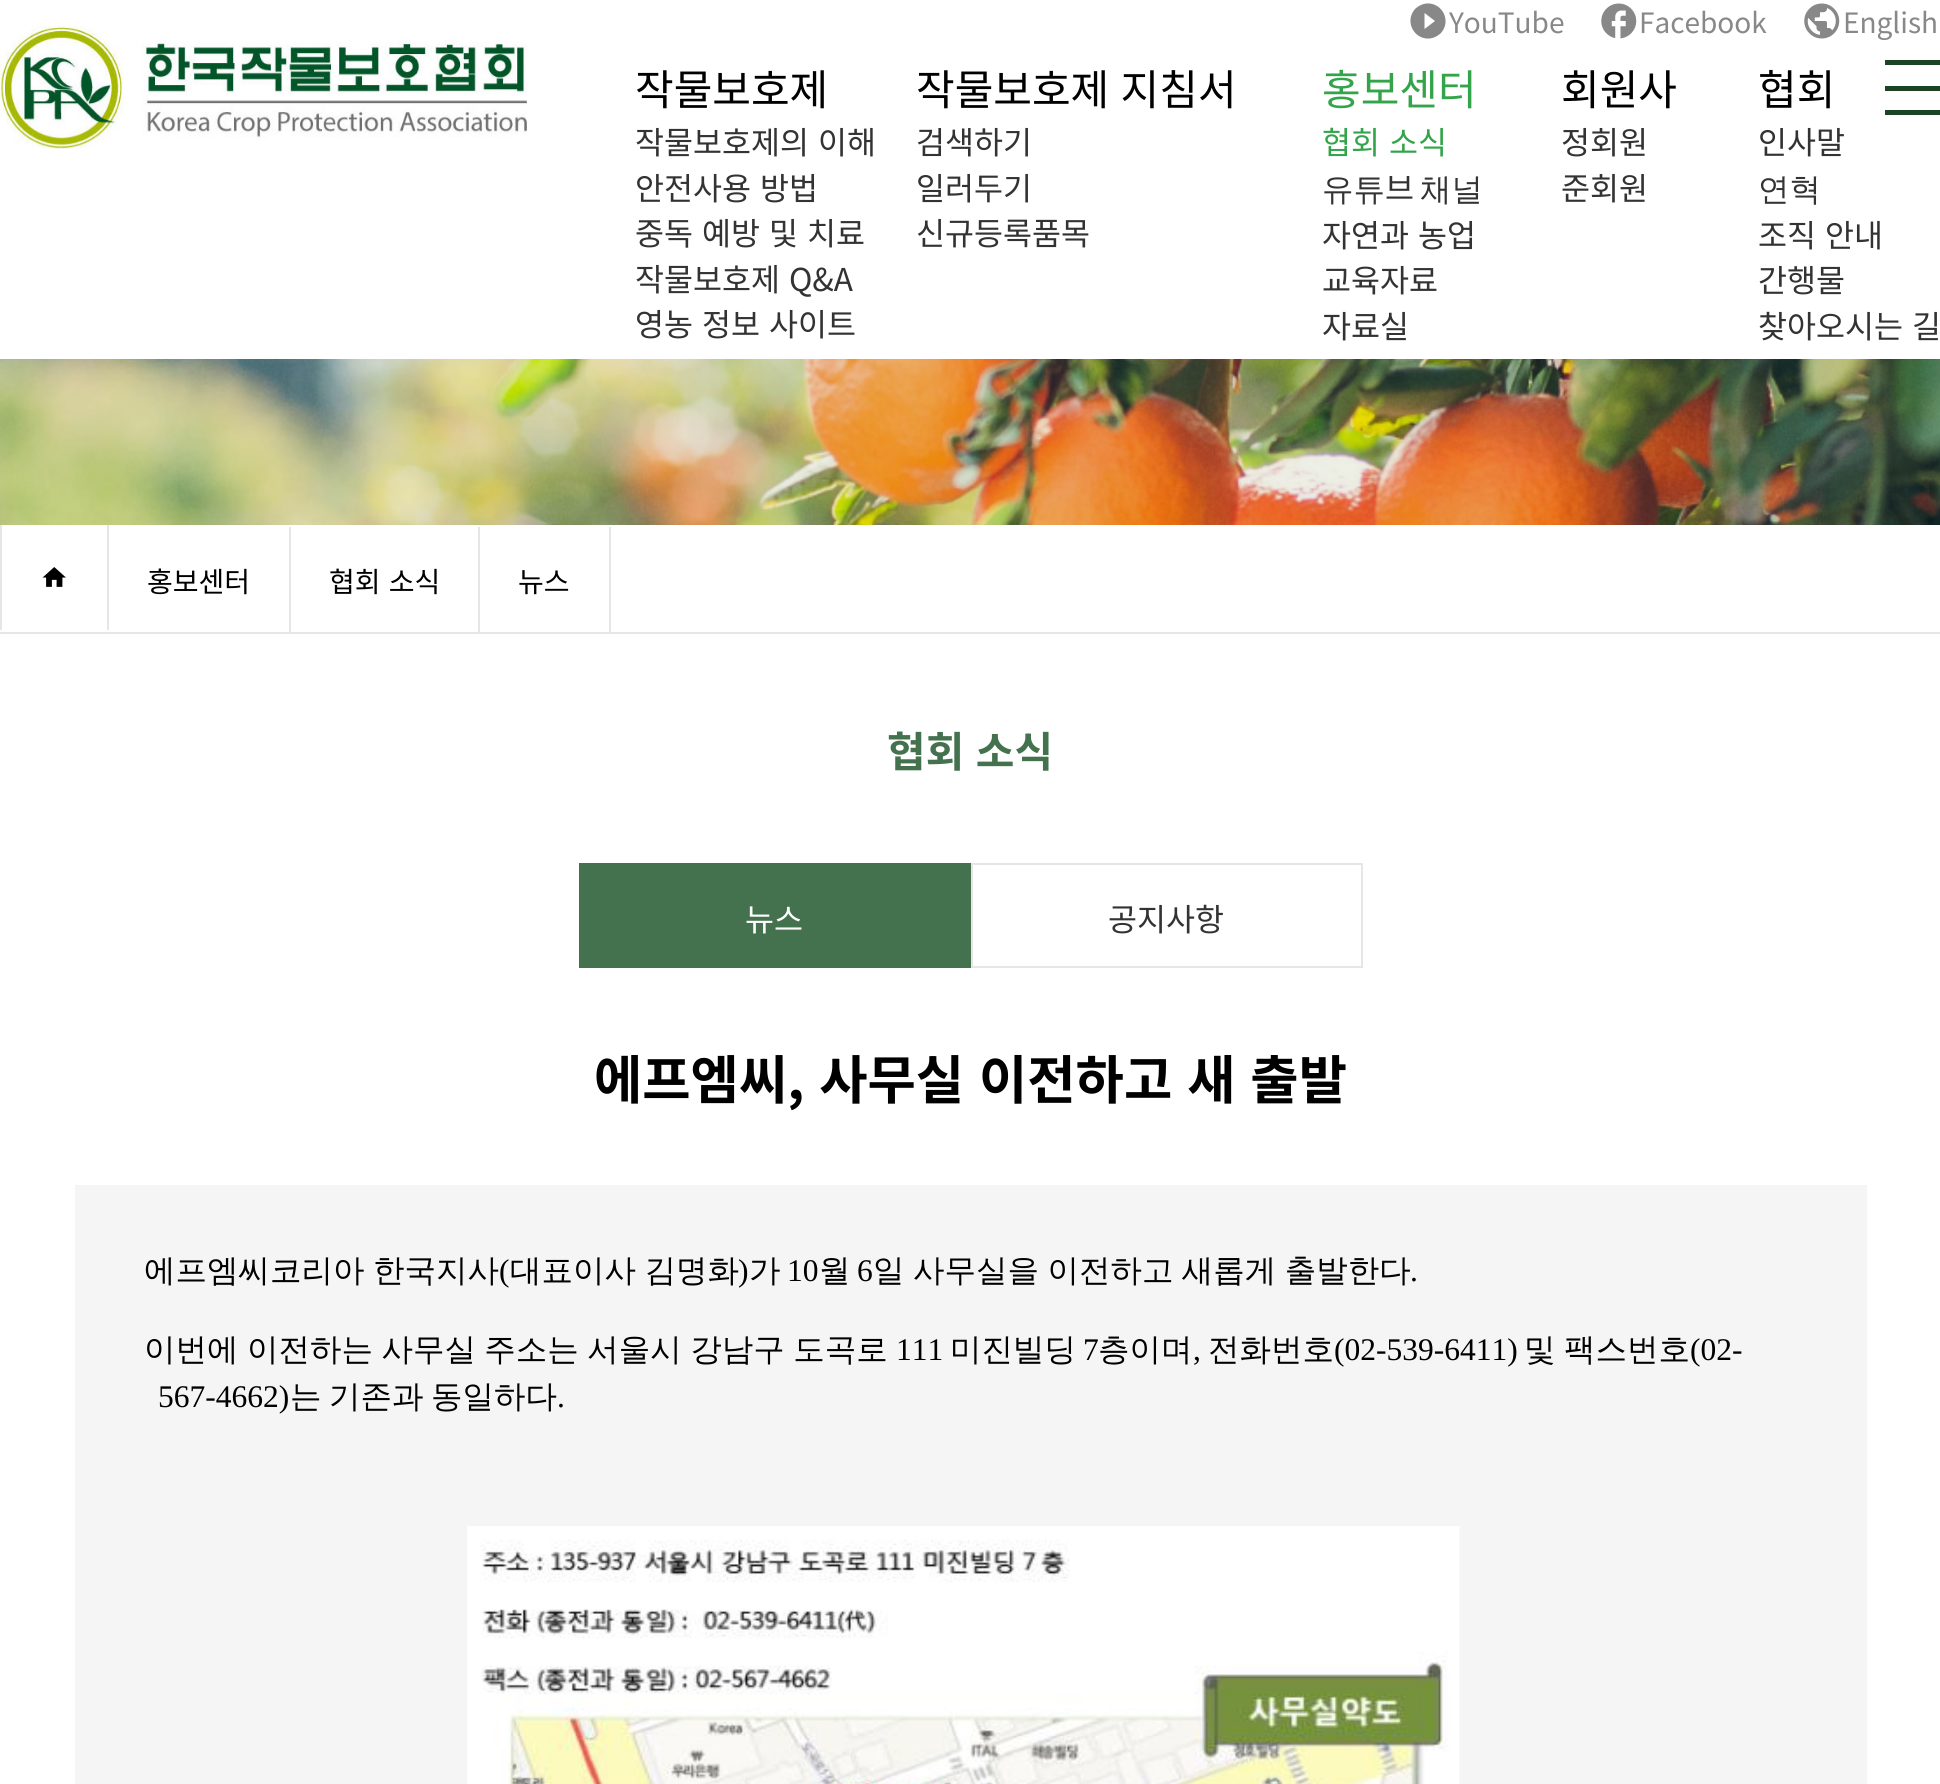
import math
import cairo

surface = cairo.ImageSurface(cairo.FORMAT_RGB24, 1940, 1784)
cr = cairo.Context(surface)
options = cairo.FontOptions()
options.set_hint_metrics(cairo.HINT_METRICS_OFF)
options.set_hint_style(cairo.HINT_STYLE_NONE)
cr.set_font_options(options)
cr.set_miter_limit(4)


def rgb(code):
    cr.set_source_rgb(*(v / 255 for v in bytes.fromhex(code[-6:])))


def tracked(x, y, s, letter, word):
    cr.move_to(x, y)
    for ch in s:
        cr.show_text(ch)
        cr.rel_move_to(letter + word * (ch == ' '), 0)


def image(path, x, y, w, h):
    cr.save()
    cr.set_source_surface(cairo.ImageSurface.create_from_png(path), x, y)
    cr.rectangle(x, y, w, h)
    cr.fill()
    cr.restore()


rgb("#ffffff")
cr.paint()
image("img/1.png", 0, 26, 527, 123)
rgb("#888888")
cr.new_path()
cr.move_to(1424.5, 29)
cr.line_to(1435, 21)
cr.line_to(1424.5, 13)
cr.close_path()
cr.move_to(1415.5, 8.5)
cr.curve_to(1418.5, 6, 1422, 4, 1426, 3.5)
cr.curve_to(1442.5, 2, 1452, 21.5, 1440.5, 33.5)
cr.curve_to(1437.5, 36, 1434, 38, 1430, 38.5)
cr.curve_to(1413.5, 40, 1404, 20.5, 1415.5, 8.5)
cr.close_path()
cr.fill()
image("img/2.png", 1601, 3, 36, 36)
image("img/3.png", 1804, 3, 36, 36)
for x, y, w, h, color in [
    (1885, 60, 55, 5, "#1a4423"),
    (1885, 86, 55, 5, "#1a4423"),
    (1885, 110, 55, 5, "#1a4423"),
]:
    rgb(color)
    cr.rectangle(x, y, w, h)
    cr.fill()
image("img/4.png", 0, 359, 1940, 166)
for x, y, w, h, color in [
    (0, 632, 1940, 2, "#e6e6e6"),
    (107, 525, 2, 105, "#e6e6e6"),
    (0, 525, 2, 105, "#e6e6e6"),
]:
    rgb(color)
    cr.rectangle(x, y, w, h)
    cr.fill()
image("img/5.png", 42, 567, 24, 20)
for x, y, w, h, color in [
    (289, 527, 2, 105, "#e6e6e6"),
    (478, 527, 2, 105, "#e6e6e6"),
    (609, 527, 2, 105, "#e6e6e6"),
    (579, 863, 392, 105, "#45724e"),
]:
    rgb(color)
    cr.rectangle(x, y, w, h)
    cr.fill()
cr.rectangle(972, 864, 390, 103)
rgb("#e6e6e6")
cr.stroke()
rgb("#f5f5f5")
cr.rectangle(75, 1185, 1792, 599)
cr.fill()
image("img/6.png", 467, 1526, 993, 258)
cr.select_font_face("Noto Sans KR")
cr.set_font_size(28)
rgb("#888888")
for x, y, s in [
    (1449, 33, "YouTube"),
    (1639, 33, "Facebook"),
    (1843, 33, "English"),
]:
    cr.move_to(x, y)
    cr.show_text(s)
cr.set_font_size(42)
rgb("#000000")
cr.move_to(635, 105)
cr.show_text("작물보호제")
cr.set_font_size(31.5)
rgb("#333333")
for x, y, s in [
    (635, 154, "작물보호제의 이해"),
    (635, 200, "안전사용 방법"),
    (635, 245, "중독 예방 및 치료"),
    (635, 291, "작물보호제 Q&A"),
    (635, 336, "영농 정보 사이트"),
]:
    tracked(x, y, s, 0, 2)
cr.set_font_size(42)
rgb("#000000")
tracked(916, 105, "작물보호제 지침서", 0, 2)
cr.set_font_size(31.5)
rgb("#333333")
for x, y, s in [
    (916, 154, "검색하기"),
    (916, 200, "일러두기"),
    (916, 245, "신규등록품목"),
]:
    cr.move_to(x, y)
    cr.show_text(s)
cr.set_font_size(42)
rgb("#34a44b")
cr.move_to(1322, 105)
cr.show_text("홍보센터")
cr.set_font_size(31.5)
tracked(1322, 154, "협회 소식", 0, 2)
cr.select_font_face("WenQuanYi Zen Hei Medium")
rgb("#333333")
cr.move_to(1322, 200)
cr.show_text("유튜")
cr.select_font_face("Noto Sans KR")
cr.move_to(1385, 200)
cr.show_text("브")
cr.select_font_face("WenQuanYi Zen Hei Medium")
cr.move_to(1420, 200)
cr.show_text("채널")
cr.select_font_face("Noto Sans KR")
tracked(1322, 247, "자연과 농업", 0, 2)
cr.move_to(1322, 292)
cr.show_text("교육자료")
cr.move_to(1322, 338)
cr.show_text("자료실")
cr.set_font_size(42)
rgb("#000000")
cr.move_to(1561, 105)
cr.show_text("회원사")
cr.set_font_size(31.5)
rgb("#333333")
cr.move_to(1561, 154)
cr.show_text("정회원")
cr.move_to(1561, 200)
cr.show_text("준회원")
cr.set_font_size(42)
rgb("#000000")
cr.move_to(1758, 105)
cr.show_text("협회")
cr.set_font_size(31.5)
rgb("#333333")
cr.move_to(1758, 154)
cr.show_text("인사말")
cr.select_font_face("WenQuanYi Zen Hei Medium")
cr.move_to(1758, 200)
cr.show_text("연혁")
cr.select_font_face("Noto Sans KR")
tracked(1758, 247, "조직 안내", 0, 2)
cr.move_to(1758, 292)
cr.show_text("간행물")
tracked(1758, 338, "찾아오시는 길", 0, 2)
cr.set_font_size(28)
rgb("#000000")
cr.move_to(147, 592)
cr.show_text("홍보센터")
tracked(329, 592, "협회 소식", 0, 2)
cr.move_to(518, 592)
cr.show_text("뉴스")
cr.select_font_face("Noto Sans KR", cairo.FONT_SLANT_NORMAL, cairo.FONT_WEIGHT_BOLD)
cr.set_font_size(42)
rgb("#45724e")
tracked(887, 767, "협회 소식", 0, 2)
cr.select_font_face("Noto Sans KR")
cr.set_font_size(31.5)
rgb("#ffffff")
cr.move_to(745, 931)
cr.show_text("뉴스")
rgb("#333333")
cr.move_to(1108, 931)
cr.show_text("공지사항")
cr.select_font_face("Noto Sans KR", cairo.FONT_SLANT_NORMAL, cairo.FONT_WEIGHT_BOLD)
cr.set_font_size(52.5)
rgb("#000000")
tracked(594, 1099, "에프엠씨, 사무실 이전하고 새 출발", 0, 3)
cr.select_font_face("WenQuanYi Zen Hei Medium")
cr.set_font_size(31.5)
tracked(144, 1281, "에프엠씨코리아 한국지사", 0, -1)
cr.select_font_face("Liberation Serif")
cr.move_to(499, 1281)
cr.show_text("(")
cr.select_font_face("WenQuanYi Zen Hei Medium")
tracked(510, 1281, "대표이사 김명화", 0, -1)
cr.select_font_face("Liberation Serif")
cr.move_to(738, 1281)
cr.show_text(")")
cr.select_font_face("WenQuanYi Zen Hei Medium")
cr.move_to(749, 1281)
cr.show_text("가")
cr.select_font_face("Liberation Serif")
cr.move_to(787, 1281)
cr.show_text("10")
cr.select_font_face("WenQuanYi Zen Hei Medium")
cr.move_to(819, 1281)
cr.show_text("월")
cr.select_font_face("Liberation Serif")
cr.move_to(857, 1281)
cr.show_text("6")
cr.select_font_face("WenQuanYi Zen Hei Medium")
tracked(873, 1281, "일 사무실을 이전하고 새롭게 출발한다", 0, -1)
cr.select_font_face("Liberation Serif")
cr.move_to(1410, 1281)
cr.show_text(".")
cr.select_font_face("WenQuanYi Zen Hei Medium")
tracked(144, 1360, "이번에 이전하는 사무실 주소는 서울시 강남구 도곡로", 0, -1)
cr.select_font_face("Liberation Serif")
cr.move_to(896, 1360)
cr.show_text("111")
cr.select_font_face("WenQuanYi Zen Hei Medium")
cr.move_to(950, 1360)
cr.show_text("미진빌딩")
cr.select_font_face("Liberation Serif")
cr.move_to(1083, 1360)
cr.show_text("7")
cr.select_font_face("WenQuanYi Zen Hei Medium")
cr.move_to(1098, 1360)
cr.show_text("층이며")
cr.select_font_face("Liberation Serif")
cr.move_to(1193, 1360)
cr.show_text(",")
cr.select_font_face("WenQuanYi Zen Hei Medium")
cr.move_to(1208, 1360)
cr.show_text("전화번호")
cr.select_font_face("Liberation Serif")
cr.move_to(1334, 1360)
cr.show_text("(02-539-6411)")
cr.select_font_face("WenQuanYi Zen Hei Medium")
tracked(1524, 1360, "및 팩스번호", 0, -1)
cr.select_font_face("Liberation Serif")
cr.move_to(1690, 1360)
cr.show_text("(02-")
cr.move_to(158, 1407)
cr.show_text("567-4662)")
cr.select_font_face("WenQuanYi Zen Hei Medium")
tracked(290, 1407, "는 기존과 동일하다", 0, -2)
cr.select_font_face("Liberation Serif")
cr.move_to(557, 1407)
cr.show_text(".")
surface.write_to_png("page.png")
